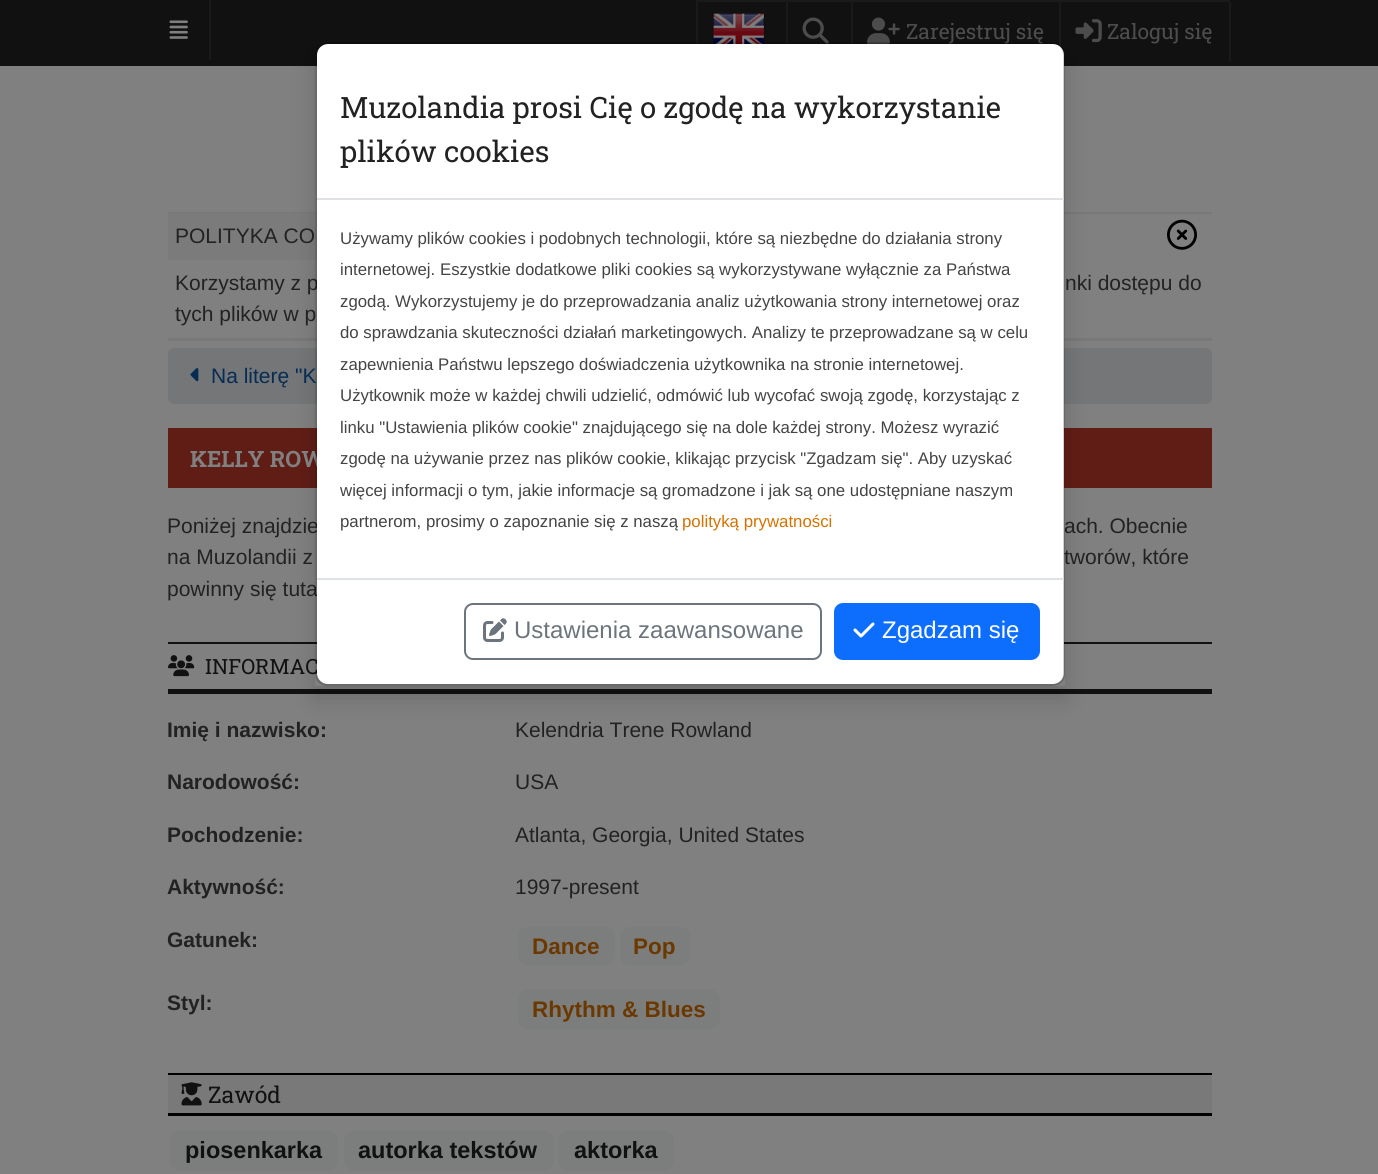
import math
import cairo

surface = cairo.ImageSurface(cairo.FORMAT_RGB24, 1378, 1174)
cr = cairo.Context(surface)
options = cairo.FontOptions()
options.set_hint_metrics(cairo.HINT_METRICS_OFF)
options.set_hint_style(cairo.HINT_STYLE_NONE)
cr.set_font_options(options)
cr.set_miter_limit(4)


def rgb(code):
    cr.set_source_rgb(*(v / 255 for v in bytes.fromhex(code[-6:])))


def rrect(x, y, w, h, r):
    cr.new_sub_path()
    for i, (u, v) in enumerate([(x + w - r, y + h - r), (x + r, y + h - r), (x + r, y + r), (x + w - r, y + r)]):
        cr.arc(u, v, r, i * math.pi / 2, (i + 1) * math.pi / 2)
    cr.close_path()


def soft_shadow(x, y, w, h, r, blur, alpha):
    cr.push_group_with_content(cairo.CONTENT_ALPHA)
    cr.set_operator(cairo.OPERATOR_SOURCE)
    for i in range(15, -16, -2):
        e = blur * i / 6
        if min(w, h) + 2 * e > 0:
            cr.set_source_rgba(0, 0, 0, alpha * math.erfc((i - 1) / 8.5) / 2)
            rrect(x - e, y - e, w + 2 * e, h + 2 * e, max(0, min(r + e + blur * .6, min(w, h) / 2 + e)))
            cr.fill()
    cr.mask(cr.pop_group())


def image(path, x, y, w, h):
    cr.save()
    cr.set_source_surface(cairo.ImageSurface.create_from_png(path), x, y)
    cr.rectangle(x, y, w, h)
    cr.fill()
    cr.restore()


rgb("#808080")
cr.paint()
rgb("#111111")
cr.rectangle(0, 0, 1378, 66)
cr.fill()
rgb("#1a1a1a")
cr.rectangle(209, 0, 2, 60)
cr.fill()
image("img/1.png", 169, 20, 19, 19)
for x, y, w, h, color in [
    (696, 0, 534, 2, "#1a1a1a"),
    (786, 2, 2, 42, "#1a1a1a"),
    (696, 2, 2, 42, "#1a1a1a"),
]:
    rgb(color)
    cr.rectangle(x, y, w, h)
    cr.fill()
image("img/2.png", 713, 13, 52, 31)
cr.rectangle(851, 2, 2, 42)
cr.fill()
image("img/3.png", 802, 17, 27, 27)
cr.rectangle(1059, 2, 2, 46)
cr.fill()
image("img/4.png", 867, 17, 33, 27)
cr.rectangle(1229, 2, 2, 60)
cr.fill()
image("img/5.png", 1075, 19, 27, 24)
for x, y, w, h, color in [
    (168, 338, 1044, 3, "#787878"),
    (168, 212, 1044, 2, "#787878"),
    (168, 213, 149, 47, "#7b7b7b"),
]:
    rgb(color)
    cr.rectangle(x, y, w, h)
    cr.fill()
image("img/6.png", 1167, 219, 30, 31)
rgb("#757678")
rrect(168, 348, 1044, 56, 6)
cr.fill()
image("img/7.png", 190, 368, 9, 14)
for x, y, w, h, color in [
    (168, 428, 1044, 60, "#601d16"),
    (168, 642, 1044, 2, "#111111"),
    (168, 689, 1044, 5, "#111111"),
]:
    rgb(color)
    cr.rectangle(x, y, w, h)
    cr.fill()
image("img/8.png", 168, 655, 27, 22)
rgb("#7c7d7d")
rrect(518, 927, 97, 38, 9)
cr.fill()
rrect(620, 927, 70, 38, 9)
cr.fill()
rrect(518, 990, 202, 39, 9)
cr.fill()
for x, y, w, h, color in [
    (168, 1075, 1044, 38, "#797979"),
    (168, 1073, 1044, 2, "#000000"),
    (168, 1113, 1044, 3, "#000000"),
]:
    rgb(color)
    cr.rectangle(x, y, w, h)
    cr.fill()
image("img/9.png", 181, 1082, 21, 24)
rgb("#7c7d7d")
rrect(170, 1131, 168, 39, 9)
cr.fill()
rrect(344, 1131, 210, 39, 9)
cr.fill()
rrect(558, 1131, 116, 39, 9)
cr.fill()
cr.save()
cr.set_fill_rule(cairo.FILL_RULE_EVEN_ODD)
cr.new_path()
cr.move_to(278, 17)
cr.line_to(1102, 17)
cr.line_to(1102, 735)
cr.line_to(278, 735)
cr.close_path()
cr.move_to(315, 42)
cr.line_to(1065, 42)
cr.line_to(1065, 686)
cr.line_to(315, 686)
cr.close_path()
cr.clip()
rgb("#000000")
soft_shadow(315, 54, 750, 644, 0, 12, 0.15)
cr.restore()
cr.select_font_face("Roboto Slab")
cr.set_font_size(21)
rgb("#4d4d4d")
cr.move_to(906, 39)
cr.show_text("Zarejestruj się")
cr.move_to(1107, 39)
cr.show_text("Zaloguj się")
cr.select_font_face("Liberation Sans")
rgb("#222222")
for x, y, s in [
    (175, 243, "POLITYKA CO"),
    (175, 290, "Korzystamy z p"),
    (1065, 290, "nki dostępu do"),
    (175, 321, "tych plików w p"),
]:
    cr.move_to(x, y)
    cr.show_text(s)
rgb("#072c53")
cr.move_to(211, 383)
cr.show_text("Na literę \"K")
cr.select_font_face("Roboto Slab", cairo.FONT_SLANT_NORMAL, cairo.FONT_WEIGHT_BOLD)
cr.set_font_size(22.5)
rgb("#808080")
cr.move_to(190, 467)
cr.show_text("KELLY ROW")
cr.select_font_face("Liberation Sans")
cr.set_font_size(21)
rgb("#222222")
for x, y, s in [
    (167, 533, "Poniżej znajdzie"),
    (1064, 533, "ach. Obecnie"),
    (167, 564, "na Muzolandii z"),
    (1064, 564, "tworów, które"),
    (167, 596, "powinny się tuta"),
]:
    cr.move_to(x, y)
    cr.show_text(s)
cr.select_font_face("Roboto Slab")
rgb("#111111")
cr.move_to(205, 674)
cr.show_text("INFORMAC")
cr.select_font_face("Liberation Sans", cairo.FONT_SLANT_NORMAL, cairo.FONT_WEIGHT_BOLD)
rgb("#222222")
cr.move_to(167, 737)
cr.show_text("Imię i nazwisko:")
cr.select_font_face("Liberation Sans")
cr.move_to(515, 737)
cr.show_text("Kelendria Trene Rowland")
cr.select_font_face("Liberation Sans", cairo.FONT_SLANT_NORMAL, cairo.FONT_WEIGHT_BOLD)
cr.move_to(167, 789)
cr.show_text("Narodowość:")
cr.select_font_face("Liberation Sans")
cr.move_to(515, 789)
cr.show_text("USA")
cr.select_font_face("Liberation Sans", cairo.FONT_SLANT_NORMAL, cairo.FONT_WEIGHT_BOLD)
cr.move_to(167, 842)
cr.show_text("Pochodzenie:")
cr.select_font_face("Liberation Sans")
cr.move_to(515, 842)
cr.show_text("Atlanta, Georgia, United States")
cr.select_font_face("Liberation Sans", cairo.FONT_SLANT_NORMAL, cairo.FONT_WEIGHT_BOLD)
cr.move_to(167, 894)
cr.show_text("Aktywność:")
cr.select_font_face("Liberation Sans")
cr.move_to(515, 894)
cr.show_text("1997-present")
cr.select_font_face("Liberation Sans", cairo.FONT_SLANT_NORMAL, cairo.FONT_WEIGHT_BOLD)
cr.move_to(167, 947)
cr.show_text("Gatunek:")
cr.set_font_size(22.5)
rgb("#6b3900")
cr.move_to(532, 954)
cr.show_text("Dance")
cr.move_to(633, 954)
cr.show_text("Pop")
cr.set_font_size(21)
rgb("#222222")
cr.move_to(167, 1010)
cr.show_text("Styl:")
cr.set_font_size(22.5)
rgb("#6b3900")
cr.move_to(532, 1017)
cr.show_text("Rhythm & Blues")
cr.select_font_face("Roboto Slab")
cr.set_font_size(23)
rgb("#111111")
cr.move_to(208, 1103)
cr.show_text("Zawód")
cr.select_font_face("Liberation Sans", cairo.FONT_SLANT_NORMAL, cairo.FONT_WEIGHT_BOLD)
cr.set_font_size(23.5)
for x, y, s in [
    (185, 1158, "piosenkarka"),
    (358, 1158, "autorka tekstów"),
    (574, 1158, "aktorka"),
]:
    cr.move_to(x, y)
    cr.show_text(s)
rgb("#ffffff")
rrect(317, 44, 747, 640, 11)
cr.fill()
rrect(316, 43, 748, 642, 11)
cr.set_source_rgba(0, 0, 0, 0.18)
cr.stroke()
rgb("#dee2e6")
cr.rectangle(317, 198, 747, 2)
cr.fill()
cr.select_font_face("Roboto Slab")
cr.set_font_size(29.4)
rgb("#222222")
cr.move_to(340, 118)
cr.show_text("Muzolandia prosi Cię o zgodę na wykorzystanie")
cr.move_to(340, 162)
cr.show_text("plików cookies")
cr.select_font_face("Liberation Sans")
cr.set_font_size(16.8)
rgb("#444444")
for x, y, s in [
    (340, 244, "Używamy plików cookies i podobnych technologii, które są niezbędne do działania strony"),
    (340, 275, "internetowej. Eszystkie dodatkowe pliki cookies są wykorzystywane wyłącznie za Państwa"),
    (340, 307, "zgodą. Wykorzystujemy je do przeprowadzania analiz użytkowania strony internetowej oraz"),
    (340, 338, "do sprawdzania skuteczności działań marketingowych. Analizy te przeprowadzane są w celu"),
    (340, 370, "zapewnienia Państwu lepszego doświadczenia użytkownika na stronie internetowej."),
    (340, 401, "Użytkownik może w każdej chwili udzielić, odmówić lub wycofać swoją zgodę, korzystając z"),
    (340, 433, "linku \"Ustawienia plików cookie\" znajdującego się na dole każdej strony. Możesz wyrazić"),
    (340, 464, "zgodę na używanie przez nas plików cookie, klikając przycisk \"Zgadzam się\". Aby uzyskać"),
    (340, 496, "więcej informacji o tym, jakie informacje są gromadzone i jak są one udostępniane naszym"),
    (340, 527, "partnerom, prosimy o zapoznanie się z naszą"),
]:
    cr.move_to(x, y)
    cr.show_text(s)
rgb("#d67200")
cr.move_to(682, 527)
cr.show_text("polityką prywatności")
rgb("#dee2e6")
cr.rectangle(317, 578, 747, 2)
cr.fill()
rrect(465, 604, 356, 55, 8)
rgb("#6c757d")
cr.stroke()
image("img/10.png", 483, 618, 24, 24)
cr.set_font_size(24)
cr.move_to(514, 638)
cr.show_text("Ustawienia zaawansowane")
rgb("#0d6efd")
rrect(835, 604, 204, 55, 8)
cr.fill_preserve()
cr.stroke()
image("img/11.png", 853, 622, 22, 16)
rgb("#ffffff")
cr.move_to(882, 638)
cr.show_text("Zgadzam się")
surface.write_to_png("page.png")
